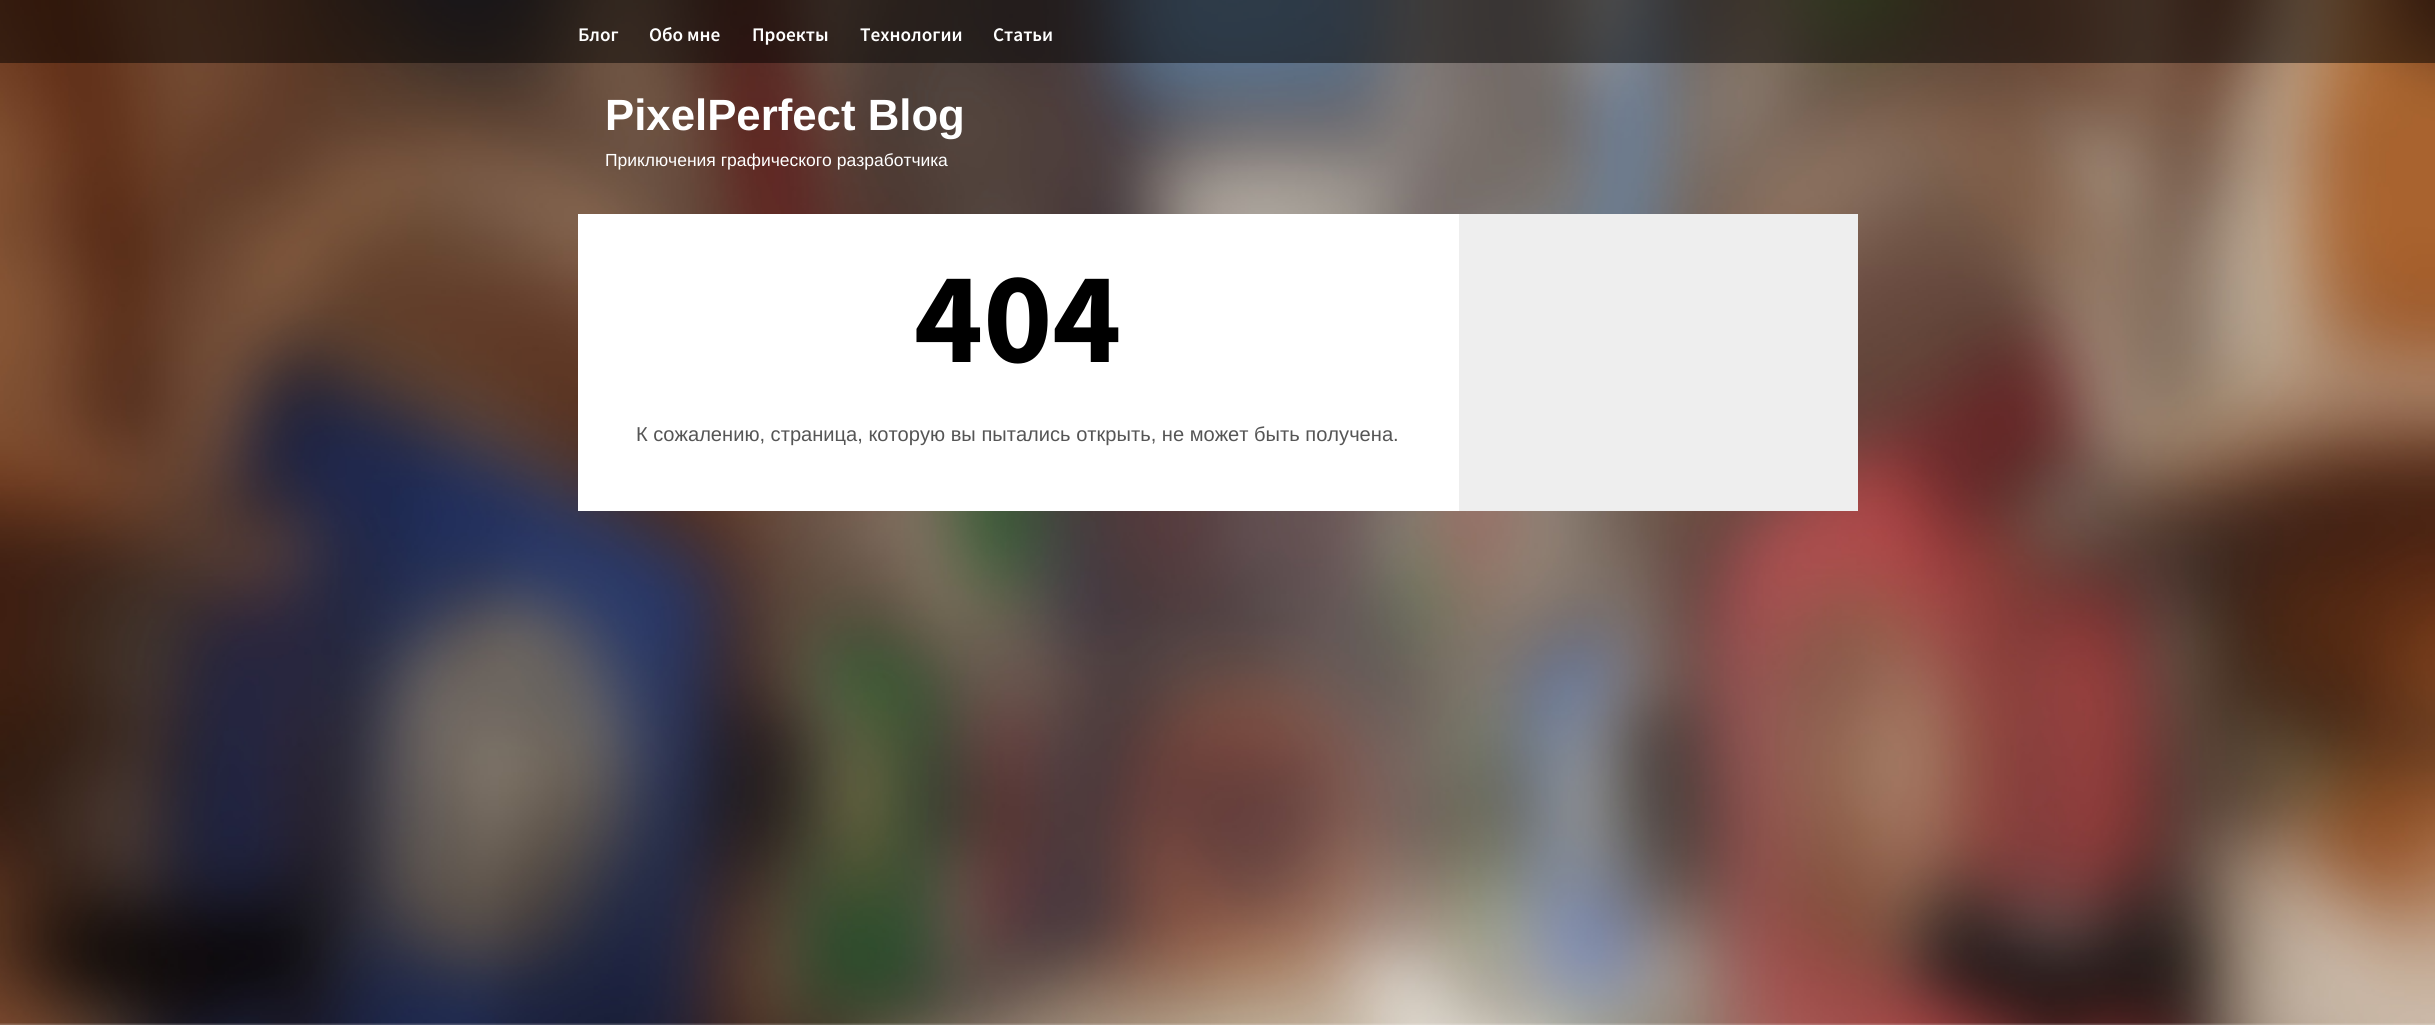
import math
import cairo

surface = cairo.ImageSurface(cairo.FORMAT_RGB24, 2435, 1025)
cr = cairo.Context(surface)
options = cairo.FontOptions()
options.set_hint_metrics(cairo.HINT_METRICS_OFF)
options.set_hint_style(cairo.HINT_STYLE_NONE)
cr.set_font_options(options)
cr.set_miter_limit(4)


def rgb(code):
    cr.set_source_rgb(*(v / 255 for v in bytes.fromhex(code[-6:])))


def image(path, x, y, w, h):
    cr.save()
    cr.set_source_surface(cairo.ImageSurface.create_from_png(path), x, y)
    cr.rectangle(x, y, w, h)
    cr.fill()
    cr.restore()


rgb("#ffffff")
cr.paint()
image("img/1.png", 0, 0, 2435, 1025)
cr.set_source_rgba(0, 0, 0, 0.5)
cr.rectangle(0, 0, 2435, 63)
cr.fill()
rgb("#eeeeee")
cr.rectangle(1459, 214, 399, 297)
cr.fill()
rgb("#ffffff")
cr.rectangle(578, 214, 881, 297)
cr.fill()
cr.select_font_face("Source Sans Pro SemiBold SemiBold")
cr.set_font_size(19.25)
for x, y, s in [
    (578, 41, "Блог"),
    (649, 41, "Обо мне"),
    (752, 41, "Проекты"),
    (860, 41, "Технологии"),
    (993, 41, "Статьи"),
]:
    cr.move_to(x, y)
    cr.show_text(s)
cr.select_font_face("Liberation Sans", cairo.FONT_SLANT_NORMAL, cairo.FONT_WEIGHT_BOLD)
cr.set_font_size(43.75)
cr.move_to(605, 130)
cr.show_text("PixelPerfect Blog")
cr.select_font_face("Liberation Sans")
cr.set_font_size(17.5)
cr.move_to(605, 166)
cr.show_text("Приключения графического разработчика")
cr.select_font_face("Source Sans Pro", cairo.FONT_SLANT_NORMAL, cairo.FONT_WEIGHT_BOLD)
cr.set_font_size(131)
rgb("#000000")
cr.move_to(914, 362)
cr.show_text("404")
cr.select_font_face("Liberation Sans")
cr.set_font_size(20.1)
rgb("#555555")
cr.move_to(636, 441)
cr.show_text("К сожалению, страница, которую вы пытались открыть, не может быть получена.")
surface.write_to_png("page.png")
